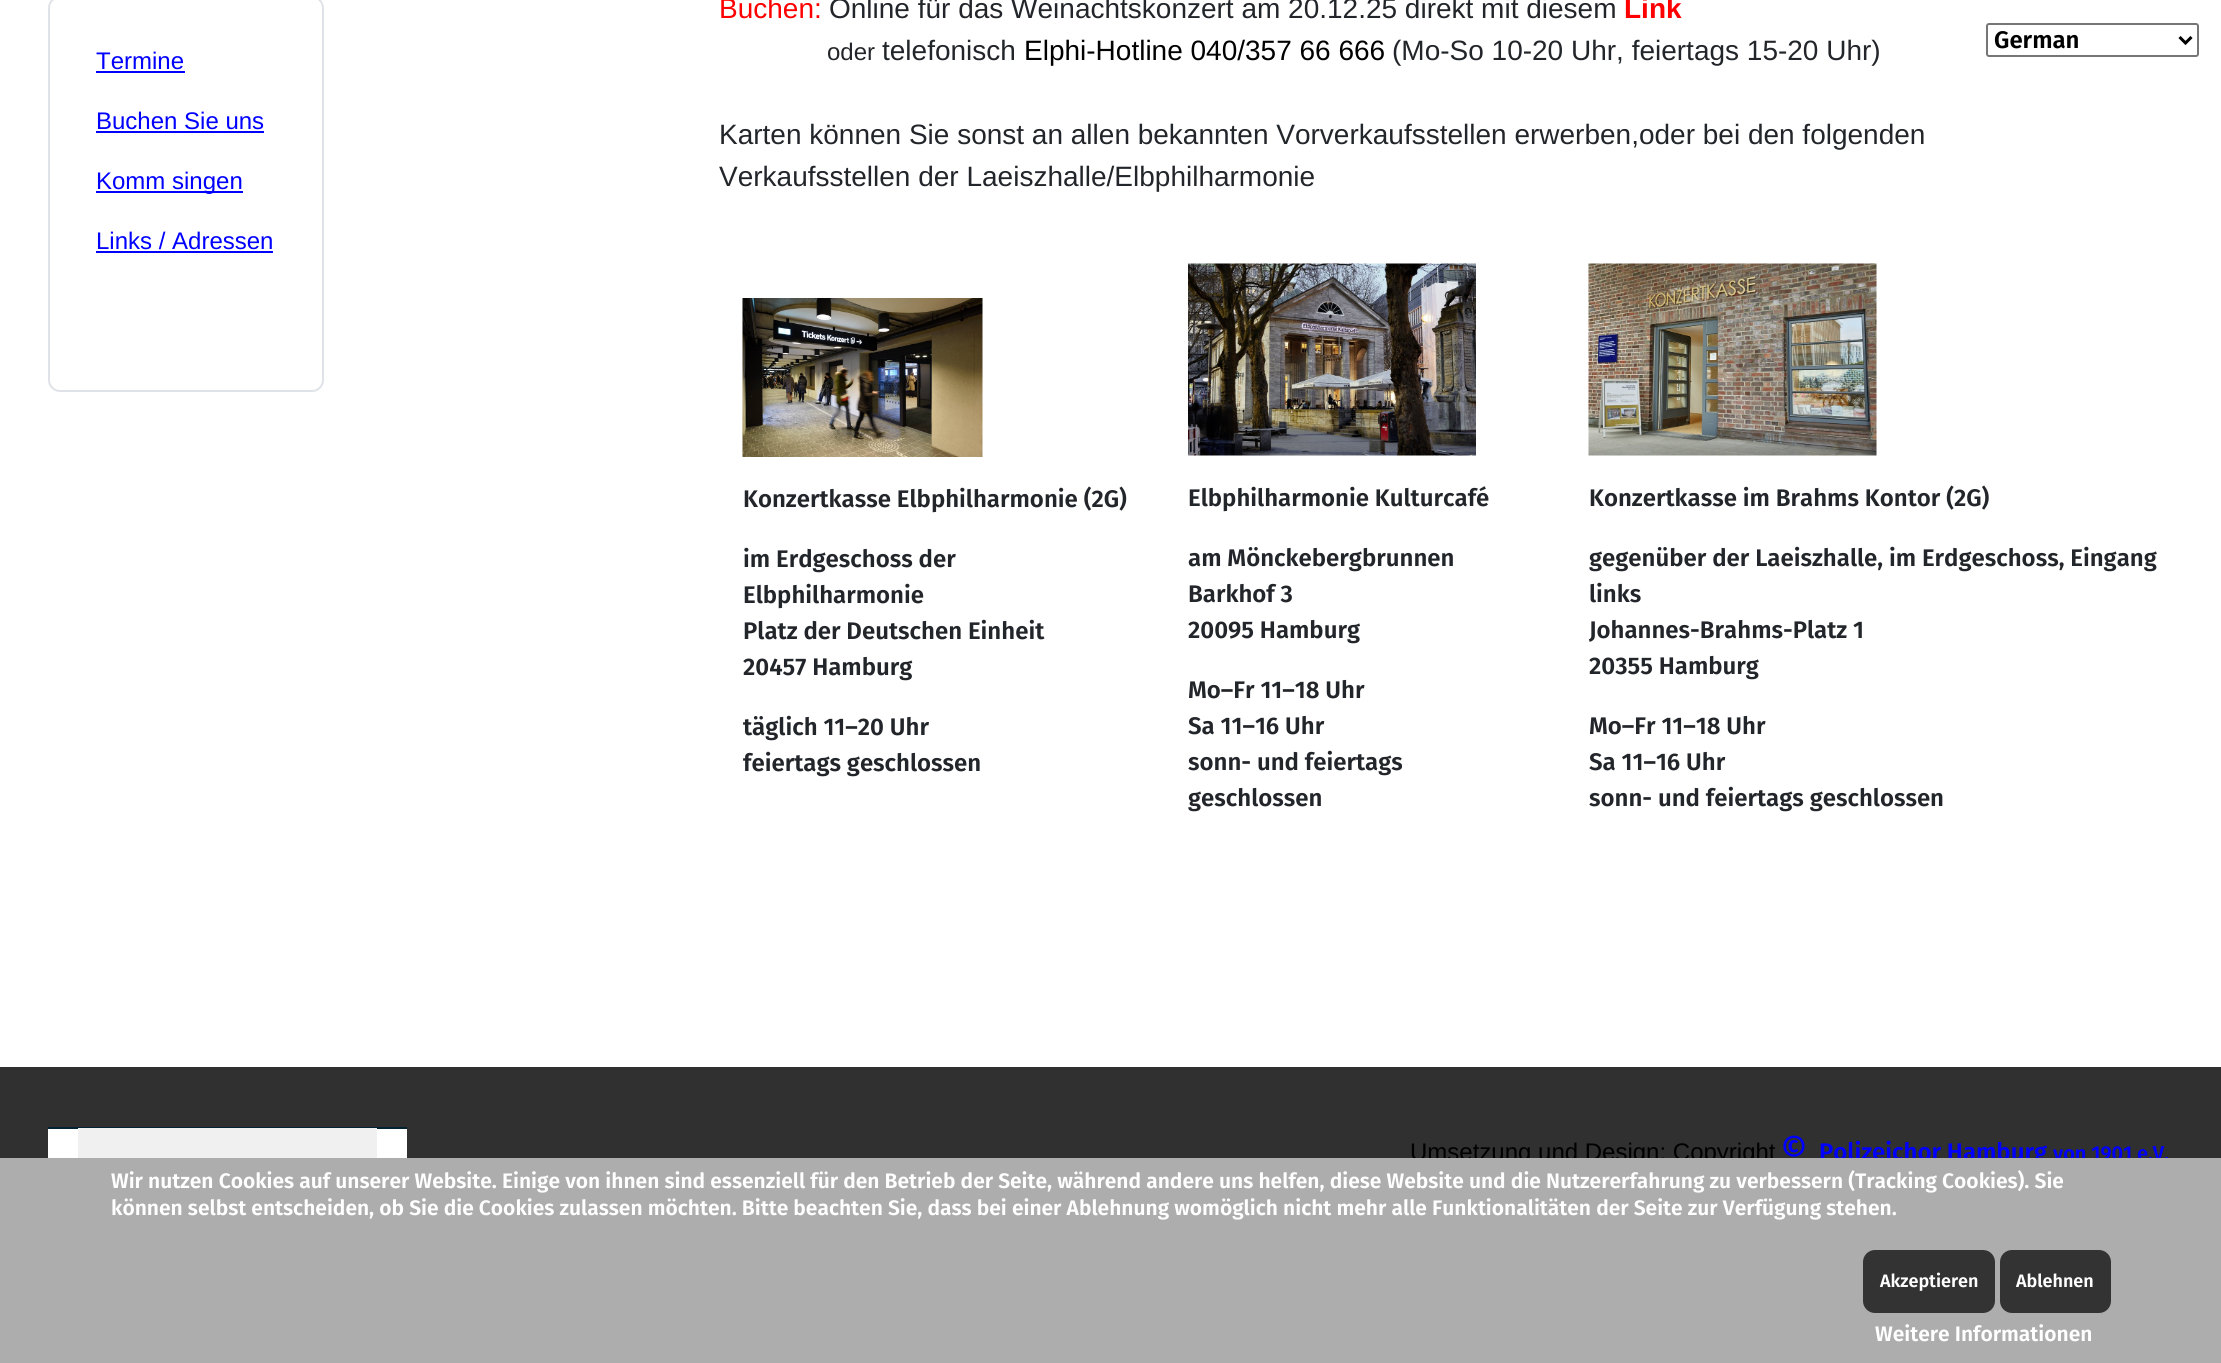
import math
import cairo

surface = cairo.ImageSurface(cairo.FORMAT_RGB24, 2221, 1363)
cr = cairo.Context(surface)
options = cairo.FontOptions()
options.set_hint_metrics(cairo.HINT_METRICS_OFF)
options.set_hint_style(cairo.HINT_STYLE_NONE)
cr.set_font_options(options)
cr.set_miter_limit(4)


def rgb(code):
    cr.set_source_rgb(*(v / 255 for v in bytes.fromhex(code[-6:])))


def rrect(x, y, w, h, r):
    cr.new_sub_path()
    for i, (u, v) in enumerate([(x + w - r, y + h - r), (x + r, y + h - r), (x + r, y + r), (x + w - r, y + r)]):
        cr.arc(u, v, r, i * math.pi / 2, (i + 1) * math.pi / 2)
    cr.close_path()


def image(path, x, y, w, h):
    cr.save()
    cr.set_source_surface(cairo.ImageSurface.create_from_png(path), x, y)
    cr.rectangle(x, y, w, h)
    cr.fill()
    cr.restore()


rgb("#ffffff")
cr.paint()
rrect(49, -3, 274, 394, 11)
rgb("#dfe3e7")
cr.stroke()
for x, y, w, h, color in [
    (96, 71, 89, 2, "#0000ff"),
    (96, 131, 168, 2, "#0000ff"),
    (96, 191, 147, 2, "#0000ff"),
    (96, 251, 177, 2, "#0000ff"),
]:
    rgb(color)
    cr.rectangle(x, y, w, h)
    cr.fill()
image("img/1.png", 742, 298, 241, 159)
image("img/2.png", 1188, 263, 288, 193)
image("img/3.png", 1588, 263, 289, 193)
rrect(1987, 24, 211, 32, 2)
rgb("#767676")
cr.stroke()
cr.new_path()
cr.move_to(2179.5, 37)
cr.line_to(2185.5, 43)
cr.line_to(2191.5, 37)
rgb("#000000")
cr.set_line_width(3)
cr.stroke()
for x, y, w, h, color in [
    (0, 1067, 2221, 91, "#313030"),
    (48, 1129, 359, 29, "#ffffff"),
    (48, 1127, 359, 2, "#002232"),
    (78, 1128, 299, 30, "#f0f0f0"),
]:
    rgb(color)
    cr.rectangle(x, y, w, h)
    cr.fill()
cr.select_font_face("Liberation Sans")
cr.set_font_size(24)
rgb("#0000ff")
for x, y, s in [
    (96, 69, "Termine"),
    (96, 129, "Buchen Sie uns"),
    (96, 189, "Komm singen"),
    (96, 249, "Links / Adressen"),
]:
    cr.move_to(x, y)
    cr.show_text(s)
cr.set_font_size(28)
rgb("#ff0000")
cr.move_to(719, 18)
cr.show_text("Buchen:")
rgb("#22262a")
cr.move_to(829, 18)
cr.show_text("Online für das Weinachtskonzert am 20.12.25 direkt mit diesem")
cr.select_font_face("Liberation Sans", cairo.FONT_SLANT_NORMAL, cairo.FONT_WEIGHT_BOLD)
rgb("#ff0000")
cr.move_to(1624, 18)
cr.show_text("Link")
cr.select_font_face("Liberation Sans")
cr.set_font_size(24)
rgb("#22262a")
cr.move_to(827, 60)
cr.show_text("oder")
cr.set_font_size(28)
cr.move_to(882, 60)
cr.show_text("telefonisch")
rgb("#000000")
cr.move_to(1024, 60)
cr.show_text("Elphi-Hotline 040/357 66 666")
rgb("#22262a")
for x, y, s in [
    (1392, 60, "(Mo-So 10-20 Uhr, feiertags 15-20 Uhr)"),
    (719, 144, "Karten können Sie sonst an allen bekannten Vorverkaufsstellen erwerben,oder bei den folgenden"),
    (719, 186, "Verkaufsstellen der Laeiszhalle/Elbphilharmonie"),
]:
    cr.move_to(x, y)
    cr.show_text(s)
cr.select_font_face("Fira Sans SemiBold")
cr.set_font_size(24)
for x, y, s in [
    (743, 507, "Konzertkasse Elbphilharmonie (2G)"),
    (743, 567, "im Erdgeschoss der"),
    (743, 603, "Elbphilharmonie"),
    (743, 639, "Platz der Deutschen Einheit"),
    (743, 675, "20457 Hamburg"),
    (743, 735, "täglich 11–20 Uhr"),
    (743, 771, "feiertags geschlossen"),
    (1188, 506, "Elbphilharmonie Kulturcafé"),
    (1188, 566, "am Mönckebergbrunnen"),
    (1188, 602, "Barkhof 3"),
    (1188, 638, "20095 Hamburg"),
    (1188, 698, "Mo–Fr 11–18 Uhr"),
    (1188, 734, "Sa 11–16 Uhr"),
    (1188, 770, "sonn- und feiertags"),
    (1188, 806, "geschlossen"),
    (1589, 506, "Konzertkasse im Brahms Kontor (2G)"),
    (1589, 566, "gegenüber der Laeiszhalle, im Erdgeschoss, Eingang"),
    (1589, 602, "links"),
    (1589, 638, "Johannes-Brahms-Platz 1"),
    (1589, 674, "20355 Hamburg"),
    (1589, 734, "Mo–Fr 11–18 Uhr"),
    (1589, 770, "Sa 11–16 Uhr"),
    (1589, 806, "sonn- und feiertags geschlossen"),
]:
    cr.move_to(x, y)
    cr.show_text(s)
rgb("#000000")
cr.move_to(1994, 48)
cr.show_text("German")
cr.select_font_face("Liberation Sans")
cr.move_to(1410, 1160)
cr.show_text("Umsetzung und Design: Copyright")
cr.select_font_face("Fira Sans SemiBold")
cr.set_font_size(32)
rgb("#0000ff")
cr.move_to(1781, 1160)
cr.show_text("©")
cr.set_font_size(24)
cr.move_to(1819, 1160)
cr.show_text("Polizeichor Hamburg")
cr.set_font_size(20)
cr.move_to(2053, 1160)
cr.show_text("von 1901 e.V.")
rgb("#adadad")
cr.rectangle(0, 1158, 2221, 205)
cr.fill()
cr.set_font_size(21)
rgb("#ffffff")
cr.move_to(111, 1188)
cr.show_text("Wir nutzen Cookies auf unserer Website. Einige von ihnen sind essenziell für den Betrieb der Seite, während andere uns helfen, diese Website und die Nutzererfahrung zu verbessern (Tracking Cookies). Sie")
cr.move_to(111, 1215)
cr.show_text("können selbst entscheiden, ob Sie die Cookies zulassen möchten. Bitte beachten Sie, dass bei einer Ablehnung womöglich nicht mehr alle Funktionalitäten der Seite zur Verfügung stehen.")
rgb("#333333")
rrect(1863, 1250, 132, 63, 12)
cr.fill()
cr.set_font_size(18)
rgb("#ffffff")
cr.move_to(1880, 1287)
cr.show_text("Akzeptieren")
rgb("#333333")
rrect(2000, 1250, 111, 63, 12)
cr.fill()
rgb("#ffffff")
cr.move_to(2016, 1287)
cr.show_text("Ablehnen")
cr.set_font_size(21)
cr.move_to(1875, 1341)
cr.show_text("Weitere Informationen")
surface.write_to_png("page.png")
